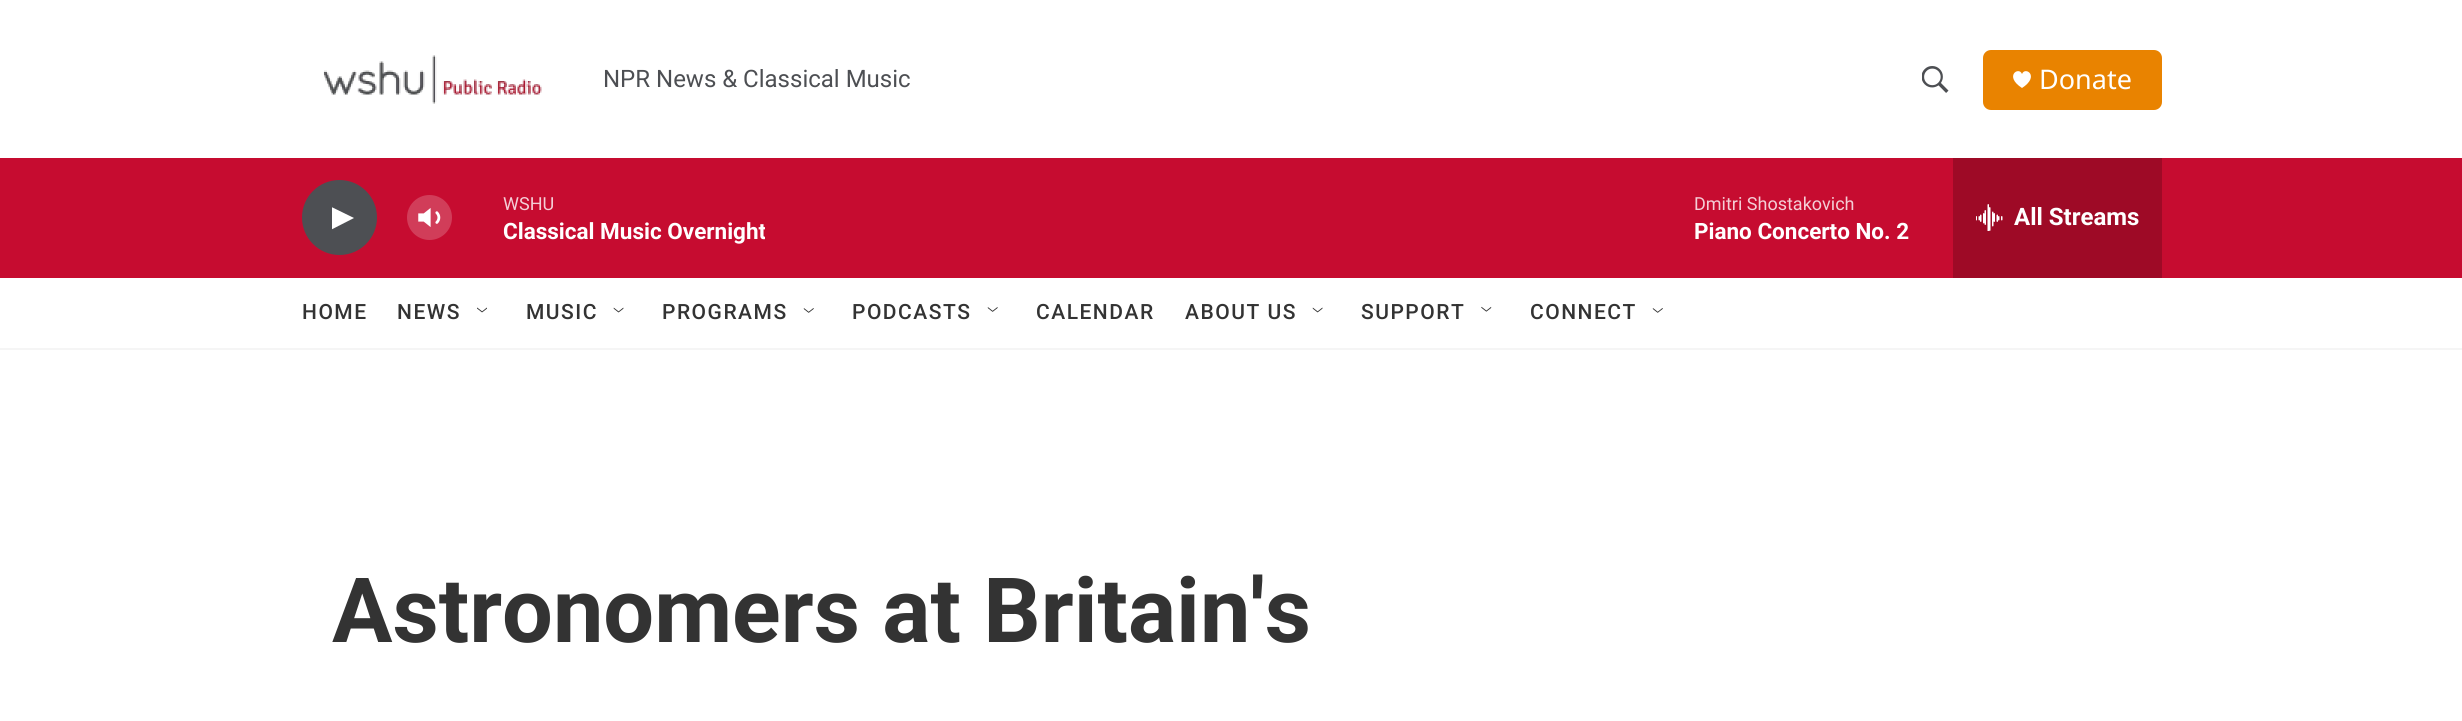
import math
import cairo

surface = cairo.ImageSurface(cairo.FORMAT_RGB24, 2462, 721)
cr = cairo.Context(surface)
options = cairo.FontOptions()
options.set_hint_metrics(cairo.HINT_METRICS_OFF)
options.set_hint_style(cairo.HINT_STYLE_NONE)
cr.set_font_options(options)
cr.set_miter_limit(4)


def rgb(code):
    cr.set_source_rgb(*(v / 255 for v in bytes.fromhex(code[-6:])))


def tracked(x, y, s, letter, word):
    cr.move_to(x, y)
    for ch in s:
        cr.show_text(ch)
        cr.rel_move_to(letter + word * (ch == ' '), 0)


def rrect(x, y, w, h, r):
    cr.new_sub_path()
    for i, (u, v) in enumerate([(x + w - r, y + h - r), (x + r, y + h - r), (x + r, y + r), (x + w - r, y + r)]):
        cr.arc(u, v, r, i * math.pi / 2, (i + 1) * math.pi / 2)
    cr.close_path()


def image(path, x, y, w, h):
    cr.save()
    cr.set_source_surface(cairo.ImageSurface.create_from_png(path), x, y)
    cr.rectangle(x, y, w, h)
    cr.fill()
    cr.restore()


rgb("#ffffff")
cr.paint()
rgb("#f5f5f5")
cr.rectangle(0, 348, 2462, 2)
cr.fill()
image("img/1.png", 323, 55, 219, 49)
image("img/2.png", 1922, 66, 27, 27)
rgb("#e98300")
rrect(1983, 50, 179, 60, 8)
cr.fill()
rgb("#ffffff")
cr.new_path()
cr.move_to(2022, 74)
cr.curve_to(2019, 66, 2003.5, 76, 2022, 88)
cr.curve_to(2040.5, 76, 2025, 66, 2022, 74)
cr.close_path()
cr.fill()
rgb("#c60c30")
cr.rectangle(0, 158, 2462, 120)
cr.fill()
rgb("#4d4f53")
cr.arc(339.5, 217.5, 37.5, 0, 2 * math.pi)
cr.fill()
cr.save()
cr.rectangle(332, 204, 22, 29)
cr.clip()
rgb("#ffffff")
cr.new_path()
cr.move_to(331.5, 207)
cr.line_to(354, 218)
cr.line_to(331.5, 229.5)
cr.close_path()
cr.fill()
cr.restore()
image("img/3.png", 418, 208, 23, 19)
cr.set_source_rgba(1, 1, 1, 0.2)
cr.arc(429.5, 217.5, 22.5, 0, 2 * math.pi)
cr.fill()
rgb("#9e0a26")
cr.rectangle(1953, 158, 209, 120)
cr.fill()
image("img/4.png", 1976, 204, 27, 27)
image("img/5.png", 477, 307, 10, 6)
image("img/6.png", 613, 307, 11, 6)
image("img/7.png", 803, 308, 11, 5)
image("img/8.png", 987, 307, 11, 5)
image("img/9.png", 1312, 307, 11, 6)
image("img/10.png", 1481, 306, 11, 6)
image("img/11.png", 1652, 308, 11, 5)
cr.select_font_face("Roboto")
cr.set_font_size(24)
rgb("#4d4f53")
cr.move_to(603, 87)
cr.show_text("NPR News & Classical Music")
cr.select_font_face("Noto Sans")
cr.set_font_size(27)
rgb("#ffffff")
cr.move_to(2039, 89)
cr.show_text("Donate")
cr.select_font_face("Roboto")
cr.set_font_size(18)
rgb("#f4ced6")
cr.move_to(503, 210)
cr.show_text("WSHU")
cr.save()
cr.rectangle(503, 218, 262, 27)
cr.clip()
cr.select_font_face("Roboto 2", cairo.FONT_SLANT_NORMAL, cairo.FONT_WEIGHT_BOLD)
cr.set_font_size(22.5)
rgb("#ffffff")
cr.move_to(503, 239)
cr.show_text("Classical Music Overnight")
cr.restore()
cr.move_to(1694, 210)
cr.show_text("Dmitri Shostakovich")
cr.select_font_face("Roboto 2", cairo.FONT_SLANT_NORMAL, cairo.FONT_WEIGHT_BOLD)
cr.set_font_size(22.5)
rgb("#ffffff")
cr.move_to(1694, 239)
cr.show_text("Piano Concerto No. 2")
cr.set_font_size(24)
cr.move_to(2014, 225)
cr.show_text("All Streams")
cr.select_font_face("Roboto Medium")
cr.set_font_size(21)
rgb("#333333")
for x, y, s in [
    (302, 319, "HOME"),
    (397, 319, "NEWS"),
    (526, 319, "MUSIC"),
    (662, 319, "PROGRAMS"),
    (852, 319, "PODCASTS"),
    (1036, 319, "CALENDAR"),
    (1185, 319, "ABOUT US"),
    (1361, 319, "SUPPORT"),
    (1530, 319, "CONNECT"),
]:
    tracked(x, y, s, 1.5, 0)
cr.select_font_face("Roboto", cairo.FONT_SLANT_NORMAL, cairo.FONT_WEIGHT_BOLD)
cr.set_font_size(90)
cr.move_to(332, 642)
cr.show_text("Astronomers at Britain's")
surface.write_to_png("page.png")
